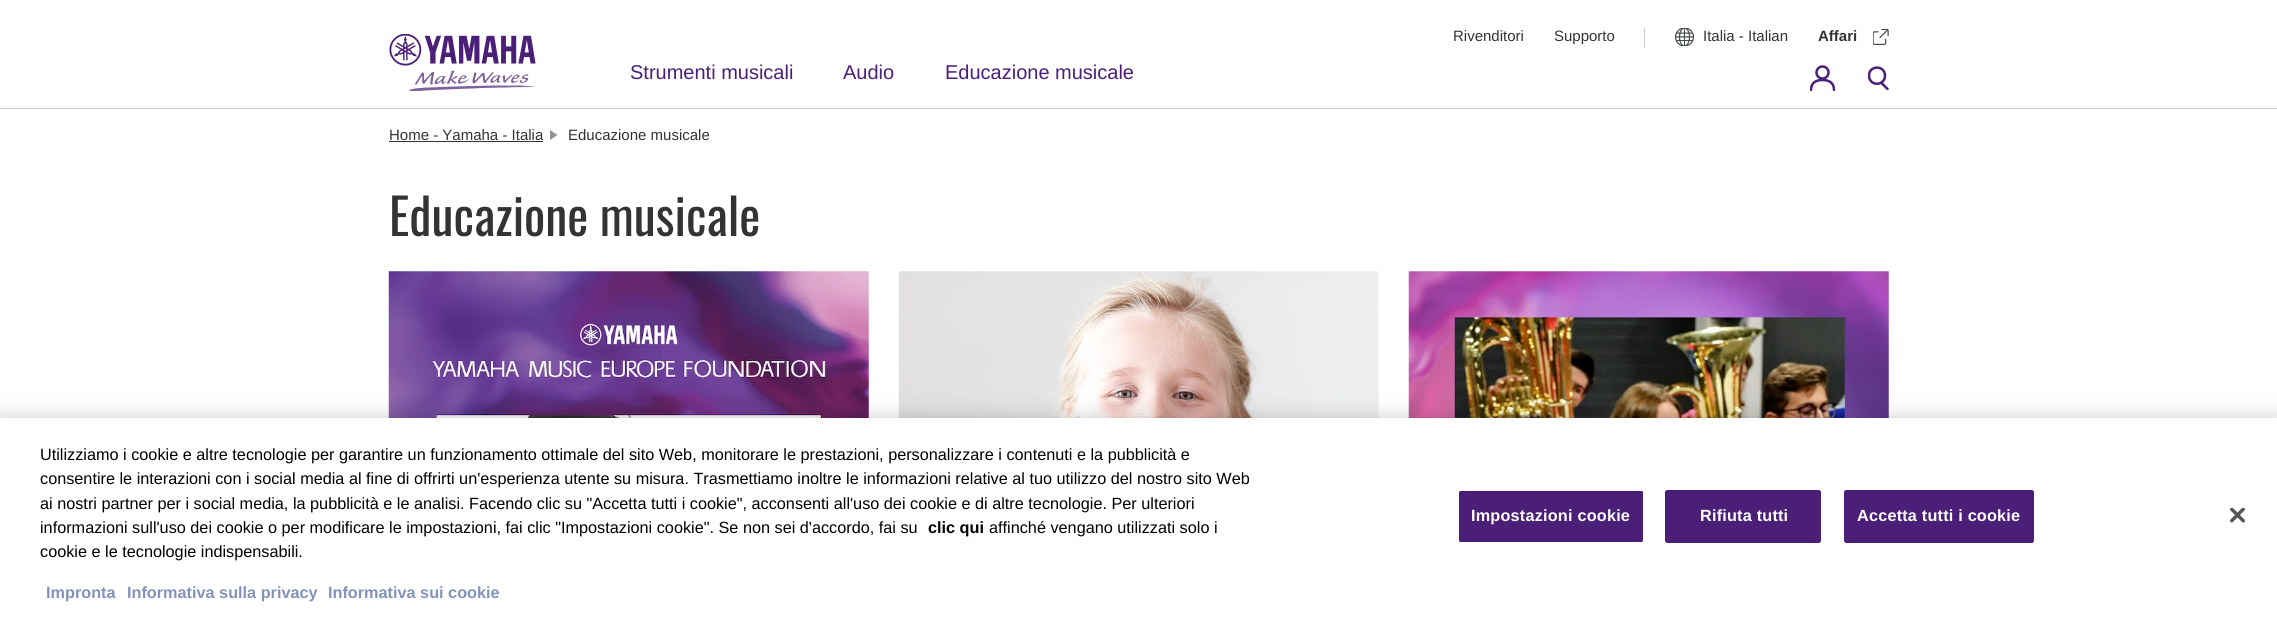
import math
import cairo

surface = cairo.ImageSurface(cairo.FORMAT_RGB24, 2277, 617)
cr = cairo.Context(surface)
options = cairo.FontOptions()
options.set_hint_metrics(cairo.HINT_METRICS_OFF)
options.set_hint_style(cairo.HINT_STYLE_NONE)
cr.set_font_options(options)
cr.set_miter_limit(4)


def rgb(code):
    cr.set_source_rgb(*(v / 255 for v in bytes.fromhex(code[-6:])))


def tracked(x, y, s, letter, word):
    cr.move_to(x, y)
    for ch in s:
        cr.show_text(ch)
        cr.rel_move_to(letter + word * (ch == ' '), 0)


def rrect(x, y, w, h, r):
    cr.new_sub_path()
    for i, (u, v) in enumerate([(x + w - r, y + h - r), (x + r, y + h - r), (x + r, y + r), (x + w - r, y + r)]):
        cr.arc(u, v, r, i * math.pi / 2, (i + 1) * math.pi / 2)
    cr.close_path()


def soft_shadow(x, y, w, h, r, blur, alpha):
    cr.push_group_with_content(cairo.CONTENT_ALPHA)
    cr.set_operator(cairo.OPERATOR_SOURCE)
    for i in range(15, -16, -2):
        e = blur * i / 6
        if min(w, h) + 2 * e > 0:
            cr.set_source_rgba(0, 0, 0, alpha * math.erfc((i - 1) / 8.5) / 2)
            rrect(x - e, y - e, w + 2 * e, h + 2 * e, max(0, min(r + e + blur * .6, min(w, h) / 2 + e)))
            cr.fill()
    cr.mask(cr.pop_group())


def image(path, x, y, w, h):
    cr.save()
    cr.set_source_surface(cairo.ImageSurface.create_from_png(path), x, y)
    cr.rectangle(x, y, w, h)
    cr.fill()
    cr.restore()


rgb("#ffffff")
cr.paint()
rgb("#cccccc")
cr.rectangle(0, 108, 2277, 1)
cr.fill()
image("img/1.png", 389, 34, 147, 57)
cr.rectangle(1644, 28, 1, 20)
cr.fill()
image("img/2.png", 1675, 28, 19, 18)
image("img/3.png", 1873, 29, 16, 16)
cr.arc(1822.5, 72.5, 6, 0, 2 * math.pi)
rgb("#4b1e78")
cr.set_line_width(2.5)
cr.stroke()
cr.save()
cr.rectangle(1810, 65, 25, 26)
cr.clip()
cr.new_path()
cr.move_to(1811, 90)
cr.curve_to(1811, 83, 1815.5, 80, 1822.5, 80)
cr.curve_to(1829.5, 80, 1834, 83, 1834, 90)
cr.set_line_cap(cairo.LINE_CAP_ROUND)
cr.stroke()
cr.restore()
cr.save()
cr.rectangle(1868, 66, 21, 24)
cr.clip()
cr.new_path()
cr.move_to(1881, 82.5)
cr.line_to(1887.5, 89)
cr.close_path()
cr.move_to(1869, 75.5)
cr.curve_to(1869, 65, 1885, 65, 1885, 75.5)
cr.curve_to(1885, 86.5, 1869, 86.5, 1869, 75.5)
cr.close_path()
cr.set_line_cap(cairo.LINE_CAP_ROUND)
cr.set_line_join(cairo.LINE_JOIN_ROUND)
cr.stroke()
cr.restore()
rgb("#333333")
cr.rectangle(389, 141, 154, 1)
cr.fill()
rgb("#949494")
cr.new_path()
cr.move_to(550, 140)
cr.line_to(550, 130)
cr.line_to(557.5, 135)
cr.close_path()
cr.fill()
image("img/4.png", 388, 271, 481, 147)
image("img/5.png", 898, 271, 481, 147)
image("img/6.png", 1408, 271, 481, 147)
rgb("#000000")
soft_shadow(0, 418, 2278, 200, 0, 11, 0.2)
rgb("#ffffff")
cr.rectangle(0, 418, 2277, 199)
cr.fill()
rgb("#4b1e78")
rrect(1458.5, 490.5, 185, 52, 2)
cr.fill_preserve()
rgb("#ffffff")
cr.set_line_width(1)
cr.stroke()
rgb("#4b1e78")
rrect(1665.5, 490.5, 155, 52, 2)
cr.fill_preserve()
cr.stroke()
rrect(1844.5, 490.5, 189, 52, 2)
cr.fill_preserve()
cr.stroke()
image("img/7.png", 2230, 508, 15, 15)
cr.select_font_face("Liberation Sans")
cr.set_font_size(15)
rgb("#333333")
for x, y, s in [
    (1453, 41, "Rivenditori"),
    (1554, 41, "Supporto"),
    (1703, 41, "Italia - Italian"),
]:
    cr.move_to(x, y)
    cr.show_text(s)
cr.select_font_face("Liberation Sans", cairo.FONT_SLANT_NORMAL, cairo.FONT_WEIGHT_BOLD)
cr.move_to(1818, 41)
cr.show_text("Affari")
cr.select_font_face("Liberation Sans")
cr.set_font_size(20)
rgb("#4b1e78")
for x, y, s in [
    (630, 79, "Strumenti musicali"),
    (843, 79, "Audio"),
    (945, 79, "Educazione musicale"),
]:
    cr.move_to(x, y)
    cr.show_text(s)
cr.set_font_size(15)
rgb("#333333")
cr.move_to(389, 140)
cr.show_text("Home - Yamaha - Italia")
cr.move_to(568, 140)
cr.show_text("Educazione musicale")
cr.select_font_face("Oswald")
cr.set_font_size(50)
cr.move_to(389, 236)
cr.show_text("Educazione musicale")
cr.select_font_face("Liberation Sans")
cr.set_font_size(16.25)
rgb("#000000")
for x, y, s in [
    (40, 460, "Utilizziamo i cookie e altre tecnologie per garantire un funzionamento ottimale del sito Web, monitorare le prestazioni, personalizzare i contenuti e la pubblicità e"),
    (40, 484, "consentire le interazioni con i social media al fine di offrirti un'esperienza utente su misura. Trasmettiamo inoltre le informazioni relative al tuo utilizzo del nostro sito Web"),
    (40, 509, "ai nostri partner per i social media, la pubblicità e le analisi. Facendo clic su \"Accetta tutti i cookie\", acconsenti all'uso dei cookie e di altre tecnologie. Per ulteriori"),
    (40, 533, "informazioni sull'uso dei cookie o per modificare le impostazioni, fai clic \"Impostazioni cookie\". Se non sei d'accordo, fai su"),
]:
    cr.move_to(x, y)
    cr.show_text(s)
cr.select_font_face("Liberation Sans", cairo.FONT_SLANT_NORMAL, cairo.FONT_WEIGHT_BOLD)
cr.move_to(928, 533)
cr.show_text("clic qui")
cr.select_font_face("Liberation Sans")
cr.move_to(989, 533)
cr.show_text("affinché vengano utilizzati solo i")
cr.move_to(40, 557)
cr.show_text("cookie e le tecnologie indispensabili.")
cr.select_font_face("Liberation Sans", cairo.FONT_SLANT_NORMAL, cairo.FONT_WEIGHT_BOLD)
rgb("#8492b9")
for x, y, s in [
    (46, 598, "Impronta"),
    (127, 598, "Informativa sulla privacy"),
    (328, 598, "Informativa sui cookie"),
]:
    cr.move_to(x, y)
    cr.show_text(s)
rgb("#ffffff")
for x, y, s in [
    (1471, 521, "Impostazioni cookie"),
    (1700, 521, "Rifiuta tutti"),
    (1857, 521, "Accetta tutti i cookie"),
]:
    tracked(x, y, s, 0.2, 0)
surface.write_to_png("page.png")
